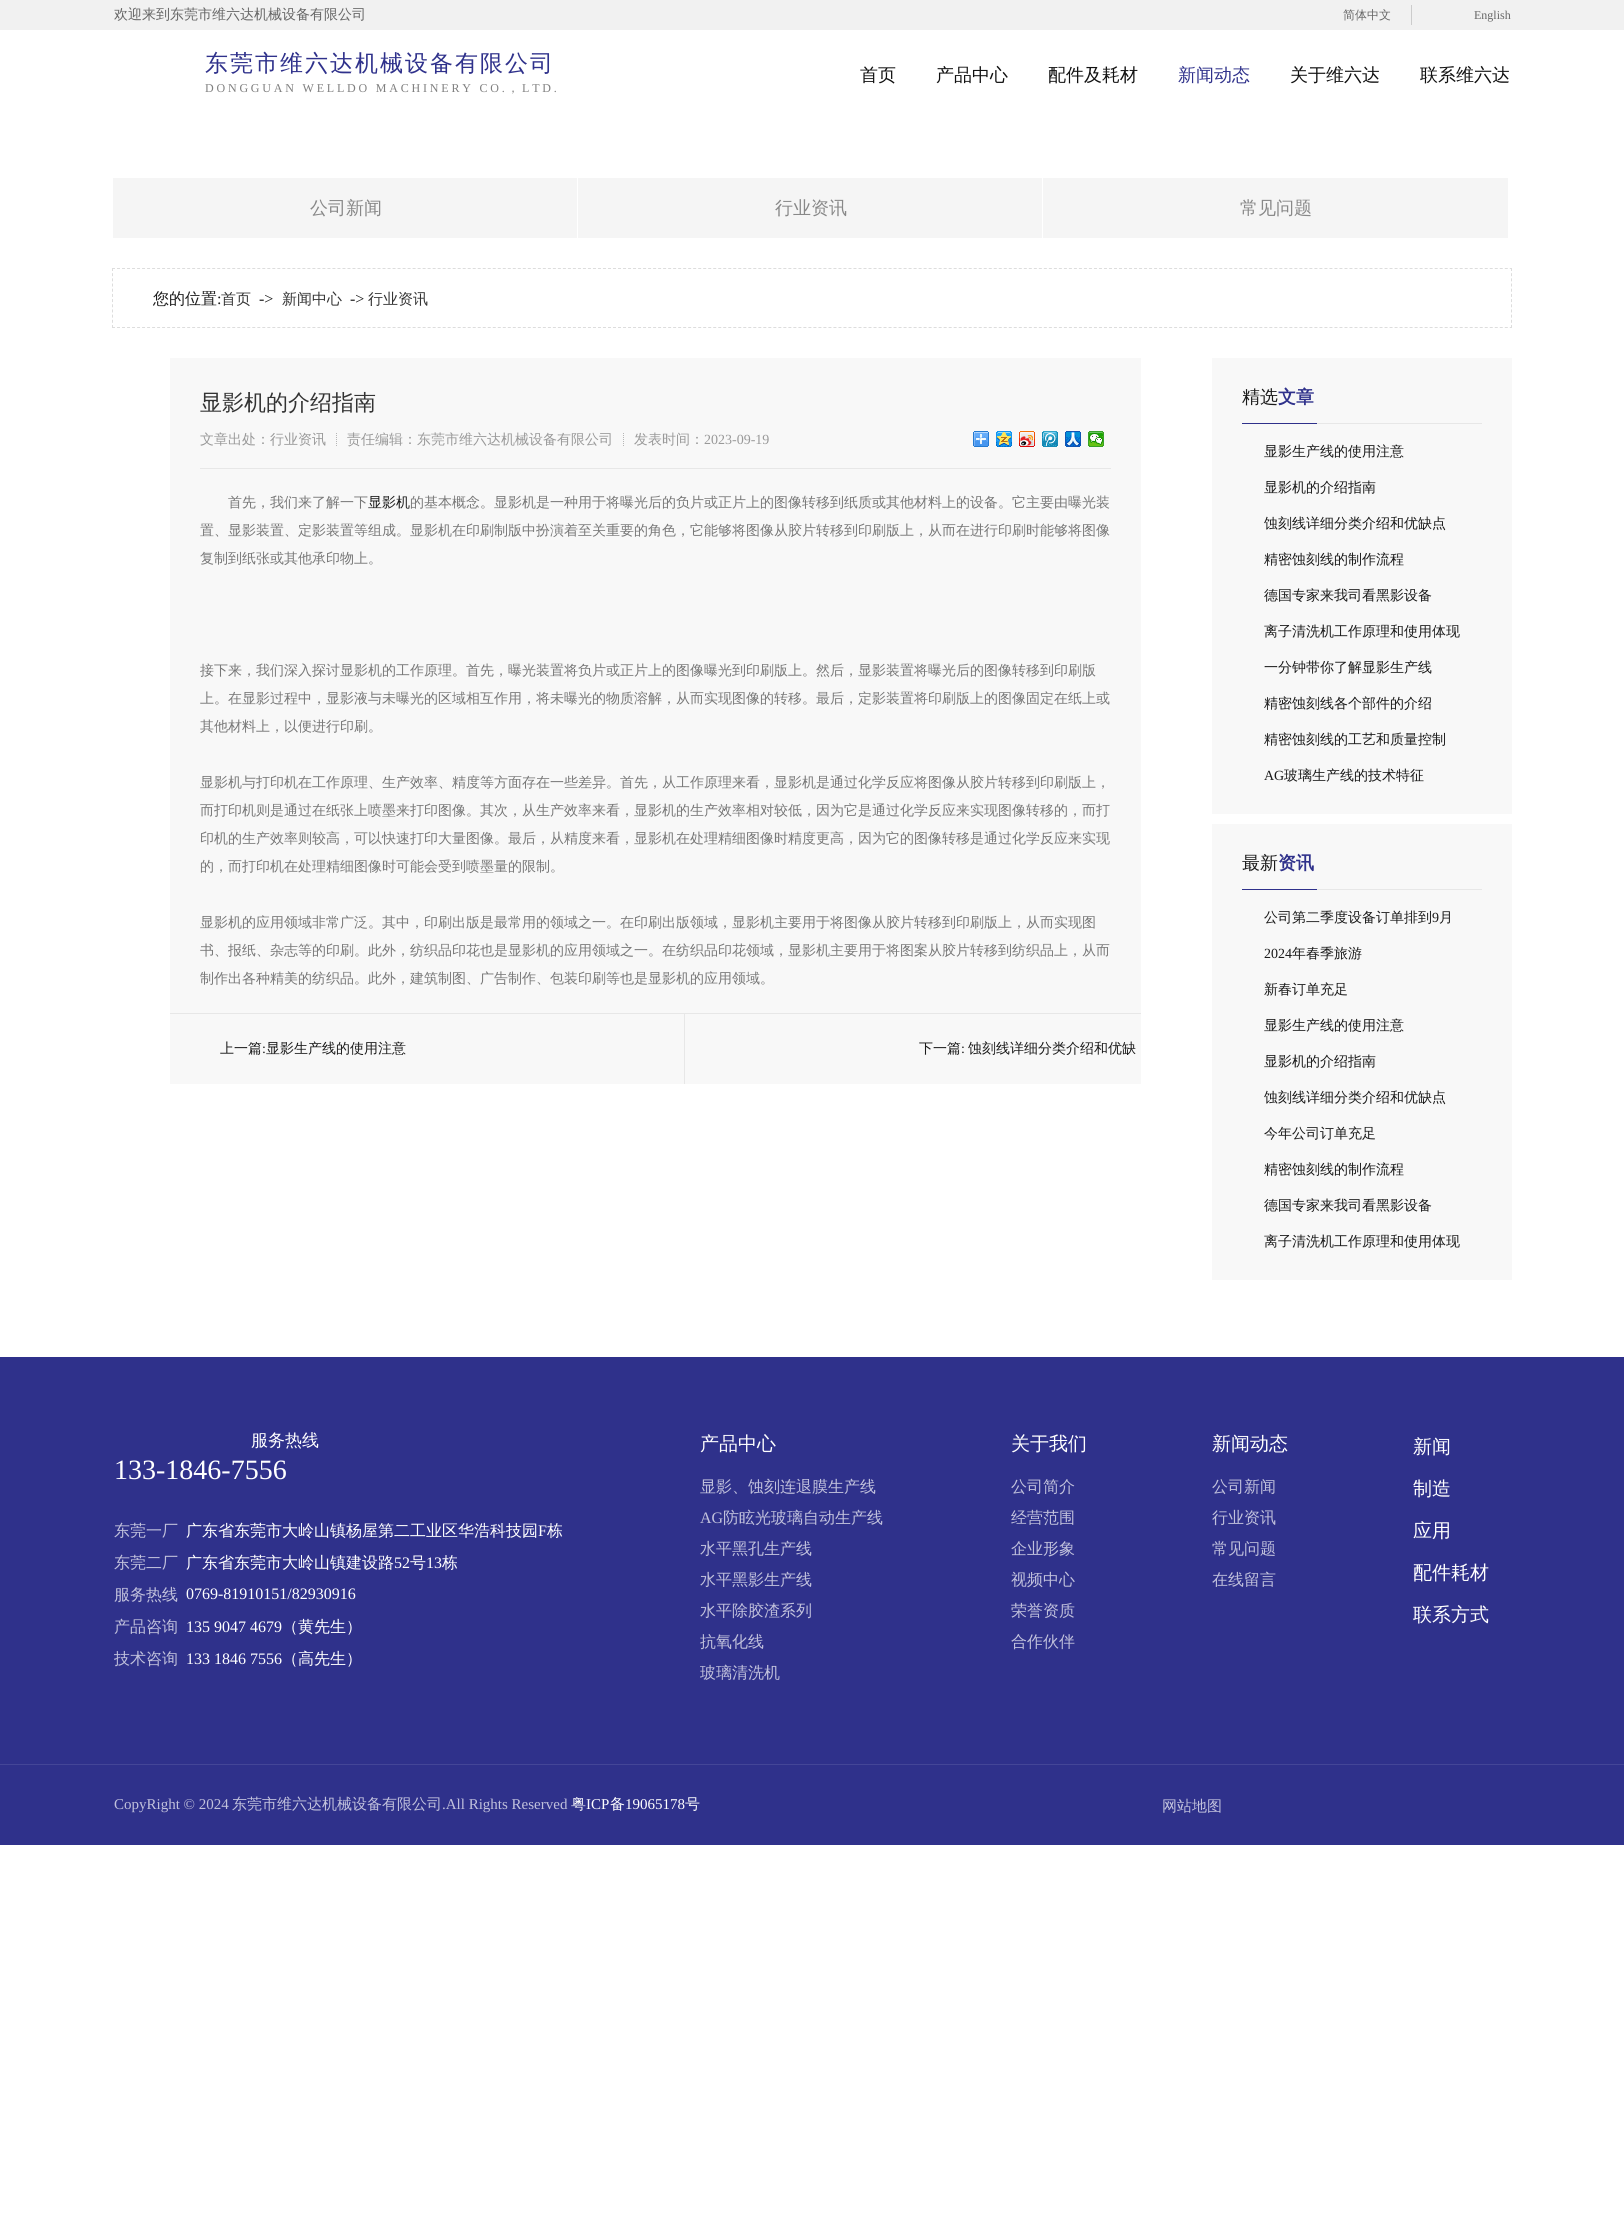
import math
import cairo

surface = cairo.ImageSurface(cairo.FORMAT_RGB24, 1624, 2232)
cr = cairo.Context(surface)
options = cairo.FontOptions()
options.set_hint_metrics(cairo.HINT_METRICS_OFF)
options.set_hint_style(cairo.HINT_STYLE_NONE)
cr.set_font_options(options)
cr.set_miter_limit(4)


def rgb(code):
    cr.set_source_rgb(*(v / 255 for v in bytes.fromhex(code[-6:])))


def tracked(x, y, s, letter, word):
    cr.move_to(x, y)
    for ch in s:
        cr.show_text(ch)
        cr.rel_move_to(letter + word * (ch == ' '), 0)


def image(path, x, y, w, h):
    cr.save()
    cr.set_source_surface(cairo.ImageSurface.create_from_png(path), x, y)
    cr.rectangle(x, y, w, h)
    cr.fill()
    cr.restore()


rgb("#ffffff")
cr.paint()
for x, y, w, h, color in [
    (0, 0, 1624, 30, "#f1f1f1"),
    (1411, 5, 1, 20, "#cccccc"),
    (113, 178, 464, 60, "#f5f5f5"),
    (578, 178, 464, 60, "#f5f5f5"),
    (1043, 178, 465, 60, "#f5f5f5"),
]:
    rgb(color)
    cr.rectangle(x, y, w, h)
    cr.fill()
cr.new_path()
cr.move_to(112, 268.5)
cr.line_to(1512, 268.5)
rgb("#dddddd")
cr.set_line_width(1)
cr.set_dash([3, 2.01])
cr.stroke()
cr.new_path()
cr.move_to(1511.5, 268)
cr.line_to(1511.5, 328)
cr.set_dash([3, 2.18])
cr.stroke()
cr.new_path()
cr.move_to(112, 327.5)
cr.line_to(1512, 327.5)
cr.set_dash([3, 2.01])
cr.stroke()
cr.new_path()
cr.move_to(112.5, 268)
cr.line_to(112.5, 328)
cr.set_dash([3, 2.18])
cr.stroke()
rgb("#f8f8f8")
cr.rectangle(170, 358, 971, 726)
cr.fill()
rgb("#e7e7e7")
cr.rectangle(200, 468, 911, 1)
cr.fill()
cr.new_path()
cr.move_to(336.5, 433)
cr.line_to(336.5, 447)
rgb("#b6b6b6")
cr.set_dash([1, 1])
cr.stroke()
cr.new_path()
cr.move_to(623.5, 433)
cr.line_to(623.5, 447)
cr.stroke()
image("img/1.png", 973, 431, 16, 16)
image("img/2.png", 996, 431, 16, 16)
image("img/3.png", 1019, 431, 16, 16)
image("img/4.png", 1042, 431, 16, 16)
image("img/5.png", 1065, 431, 16, 16)
image("img/6.png", 1088, 431, 16, 16)
for x, y, w, h, color in [
    (170, 1013, 971, 1, "#e7e7e7"),
    (684, 1014, 1, 70, "#e7e7e7"),
    (1212, 358, 300, 456, "#f8f8f8"),
    (1317, 423, 165, 1, "#e7e7e7"),
    (1242, 423, 75, 1, "#2f318b"),
    (1212, 824, 300, 456, "#f8f8f8"),
    (1317, 889, 165, 1, "#e7e7e7"),
    (1242, 889, 75, 1, "#2f318b"),
    (0, 1357, 1624, 407, "#2f318b"),
    (0, 1765, 1624, 80, "#2f318b"),
    (0, 1764, 1624, 1, "#444697"),
]:
    rgb(color)
    cr.rectangle(x, y, w, h)
    cr.fill()
cr.select_font_face("WenQuanYi Zen Hei Medium")
cr.set_font_size(14)
rgb("#666666")
cr.move_to(114, 19)
cr.show_text("欢迎来到东莞市维六达机械设备有限公司")
cr.set_font_size(12)
cr.move_to(1343, 19)
cr.show_text("简体中文")
cr.select_font_face("Liberation Serif")
cr.move_to(1474, 19)
cr.show_text("English")
cr.select_font_face("WenQuanYi Zen Hei Medium")
cr.set_font_size(23)
rgb("#2f318b")
tracked(205, 71, "东莞市维六达机械设备有限公司", 2, 0)
cr.select_font_face("Liberation Serif")
cr.set_font_size(12)
rgb("#7f7f7f")
tracked(205, 92, "DONGGUAN WELLDO MACHINERY CO.", 2.8, 0)
cr.select_font_face("WenQuanYi Zen Hei Medium")
tracked(507, 92, "，", 2.8, 0)
cr.select_font_face("Liberation Serif")
tracked(522, 92, "LTD.", 2.8, 0)
cr.select_font_face("WenQuanYi Zen Hei Medium")
cr.set_font_size(18)
rgb("#111111")
for x, y, s in [
    (860, 81, "首页"),
    (936, 81, "产品中心"),
    (1048, 81, "配件及耗材"),
]:
    cr.move_to(x, y)
    cr.show_text(s)
rgb("#2f318b")
cr.move_to(1178, 81)
cr.show_text("新闻动态")
rgb("#111111")
cr.move_to(1290, 81)
cr.show_text("关于维六达")
cr.move_to(1420, 81)
cr.show_text("联系维六达")
rgb("#888888")
for x, y, s in [
    (310, 214, "公司新闻"),
    (775, 214, "行业资讯"),
    (1240, 214, "常见问题"),
]:
    cr.move_to(x, y)
    cr.show_text(s)
cr.set_font_size(16)
rgb("#1a1a1a")
cr.move_to(153, 304)
cr.show_text("您的位置")
cr.select_font_face("Liberation Serif")
cr.move_to(217, 304)
cr.show_text(":")
cr.select_font_face("WenQuanYi Zen Hei Medium")
cr.set_font_size(15)
rgb("#333333")
cr.move_to(221, 304)
cr.show_text("首页")
cr.select_font_face("Liberation Serif")
cr.set_font_size(16)
rgb("#1a1a1a")
cr.move_to(259, 304)
cr.show_text("->")
cr.select_font_face("WenQuanYi Zen Hei Medium")
cr.set_font_size(15)
rgb("#333333")
cr.move_to(282, 304)
cr.show_text("新闻中心")
cr.select_font_face("Liberation Serif")
cr.set_font_size(16)
rgb("#1a1a1a")
cr.move_to(350, 304)
cr.show_text("->")
cr.select_font_face("WenQuanYi Zen Hei Medium")
cr.set_font_size(15)
rgb("#333333")
cr.move_to(368, 304)
cr.show_text("行业资讯")
cr.set_font_size(22)
cr.move_to(200, 410)
cr.show_text("显影机的介绍指南")
cr.set_font_size(14)
rgb("#999999")
for x, y, s in [
    (200, 444, "文章出处：行业资讯"),
    (347, 444, "责任编辑：东莞市维六达机械设备有限公司"),
    (634, 444, "发表时间："),
]:
    cr.move_to(x, y)
    cr.show_text(s)
cr.select_font_face("Liberation Serif")
cr.move_to(704, 444)
cr.show_text("2023-09-19")
cr.select_font_face("WenQuanYi Zen Hei Medium")
rgb("#777777")
cr.move_to(228, 507)
cr.show_text("首先，我们来了解一下")
rgb("#1a1a1a")
cr.move_to(368, 507)
cr.show_text("显影机")
rgb("#777777")
for x, y, s in [
    (410, 507, "的基本概念。显影机是一种用于将曝光后的负片或正片上的图像转移到纸质或其他材料上的设备。它主要由曝光装"),
    (200, 535, "置、显影装置、定影装置等组成。显影机在印刷制版中扮演着至关重要的角色，它能够将图像从胶片转移到印刷版上，从而在进行印刷时能够将图像"),
    (200, 563, "复制到纸张或其他承印物上。"),
    (200, 675, "接下来，我们深入探讨显影机的工作原理。首先，曝光装置将负片或正片上的图像曝光到印刷版上。然后，显影装置将曝光后的图像转移到印刷版"),
    (200, 703, "上。在显影过程中，显影液与未曝光的区域相互作用，将未曝光的物质溶解，从而实现图像的转移。最后，定影装置将印刷版上的图像固定在纸上或"),
    (200, 731, "其他材料上，以便进行印刷。"),
    (200, 787, "显影机与打印机在工作原理、生产效率、精度等方面存在一些差异。首先，从工作原理来看，显影机是通过化学反应将图像从胶片转移到印刷版上，"),
    (200, 815, "而打印机则是通过在纸张上喷墨来打印图像。其次，从生产效率来看，显影机的生产效率相对较低，因为它是通过化学反应来实现图像转移的，而打"),
    (200, 843, "印机的生产效率则较高，可以快速打印大量图像。最后，从精度来看，显影机在处理精细图像时精度更高，因为它的图像转移是通过化学反应来实现"),
    (200, 871, "的，而打印机在处理精细图像时可能会受到喷墨量的限制。"),
    (200, 927, "显影机的应用领域非常广泛。其中，印刷出版是最常用的领域之一。在印刷出版领域，显影机主要用于将图像从胶片转移到印刷版上，从而实现图"),
    (200, 955, "书、报纸、杂志等的印刷。此外，纺织品印花也是显影机的应用领域之一。在纺织品印花领域，显影机主要用于将图案从胶片转移到纺织品上，从而"),
    (200, 983, "制作出各种精美的纺织品。此外，建筑制图、广告制作、包装印刷等也是显影机的应用领域。"),
]:
    cr.move_to(x, y)
    cr.show_text(s)
rgb("#1a1a1a")
cr.move_to(220, 1053)
cr.show_text("上一篇")
cr.select_font_face("Liberation Serif")
cr.move_to(262, 1053)
cr.show_text(":")
cr.select_font_face("WenQuanYi Zen Hei Medium")
cr.move_to(266, 1053)
cr.show_text("显影生产线的使用注意")
cr.move_to(919, 1053)
cr.show_text("下一篇")
cr.select_font_face("Liberation Serif")
cr.move_to(961, 1053)
cr.show_text(":")
cr.select_font_face("WenQuanYi Zen Hei Medium")
cr.move_to(968, 1053)
cr.show_text("蚀刻线详细分类介绍和优缺")
cr.set_font_size(18)
cr.move_to(1242, 403)
cr.show_text("精选")
cr.select_font_face("WenQuanYi Zen Hei", cairo.FONT_SLANT_NORMAL, cairo.FONT_WEIGHT_BOLD)
rgb("#2f318b")
cr.move_to(1278, 403)
cr.show_text("文章")
cr.select_font_face("WenQuanYi Zen Hei Medium")
cr.set_font_size(14)
rgb("#1a1a1a")
for x, y, s in [
    (1264, 456, "显影生产线的使用注意"),
    (1264, 492, "显影机的介绍指南"),
    (1264, 528, "蚀刻线详细分类介绍和优缺点"),
    (1264, 564, "精密蚀刻线的制作流程"),
    (1264, 600, "德国专家来我司看黑影设备"),
    (1264, 636, "离子清洗机工作原理和使用体现"),
    (1264, 672, "一分钟带你了解显影生产线"),
    (1264, 708, "精密蚀刻线各个部件的介绍"),
    (1264, 744, "精密蚀刻线的工艺和质量控制"),
]:
    cr.move_to(x, y)
    cr.show_text(s)
cr.select_font_face("Liberation Serif")
cr.move_to(1264, 780)
cr.show_text("AG")
cr.select_font_face("WenQuanYi Zen Hei Medium")
cr.move_to(1284, 780)
cr.show_text("玻璃生产线的技术特征")
cr.set_font_size(18)
cr.move_to(1242, 869)
cr.show_text("最新")
cr.select_font_face("WenQuanYi Zen Hei", cairo.FONT_SLANT_NORMAL, cairo.FONT_WEIGHT_BOLD)
rgb("#2f318b")
cr.move_to(1278, 869)
cr.show_text("资讯")
cr.select_font_face("WenQuanYi Zen Hei Medium")
cr.set_font_size(14)
rgb("#1a1a1a")
cr.move_to(1264, 922)
cr.show_text("公司第二季度设备订单排到")
cr.select_font_face("Liberation Serif")
cr.move_to(1432, 922)
cr.show_text("9")
cr.select_font_face("WenQuanYi Zen Hei Medium")
cr.move_to(1439, 922)
cr.show_text("月")
cr.select_font_face("Liberation Serif")
cr.move_to(1264, 958)
cr.show_text("2024")
cr.select_font_face("WenQuanYi Zen Hei Medium")
for x, y, s in [
    (1292, 958, "年春季旅游"),
    (1264, 994, "新春订单充足"),
    (1264, 1030, "显影生产线的使用注意"),
    (1264, 1066, "显影机的介绍指南"),
    (1264, 1102, "蚀刻线详细分类介绍和优缺点"),
    (1264, 1138, "今年公司订单充足"),
    (1264, 1174, "精密蚀刻线的制作流程"),
    (1264, 1210, "德国专家来我司看黑影设备"),
    (1264, 1246, "离子清洗机工作原理和使用体现"),
]:
    cr.move_to(x, y)
    cr.show_text(s)
cr.set_font_size(17)
rgb("#ffffff")
cr.move_to(251, 1446)
cr.show_text("服务热线")
cr.select_font_face("Liberation Serif")
cr.set_font_size(28)
cr.move_to(114, 1479)
cr.show_text("133-1846-7556")
cr.select_font_face("WenQuanYi Zen Hei Medium")
cr.set_font_size(16)
rgb("#c1c1dc")
cr.move_to(114, 1536)
cr.show_text("东莞一厂")
rgb("#ffffff")
cr.move_to(186, 1536)
cr.show_text("广东省东莞市大岭山镇杨屋第二工业区华浩科技园")
cr.select_font_face("Liberation Serif")
cr.move_to(538, 1536)
cr.show_text("F")
cr.select_font_face("WenQuanYi Zen Hei Medium")
cr.move_to(547, 1536)
cr.show_text("栋")
rgb("#c1c1dc")
cr.move_to(114, 1568)
cr.show_text("东莞二厂")
rgb("#ffffff")
cr.move_to(186, 1568)
cr.show_text("广东省东莞市大岭山镇建设路")
cr.select_font_face("Liberation Serif")
cr.move_to(394, 1568)
cr.show_text("52")
cr.select_font_face("WenQuanYi Zen Hei Medium")
cr.move_to(410, 1568)
cr.show_text("号")
cr.select_font_face("Liberation Serif")
cr.move_to(426, 1568)
cr.show_text("13")
cr.select_font_face("WenQuanYi Zen Hei Medium")
cr.move_to(442, 1568)
cr.show_text("栋")
rgb("#c1c1dc")
cr.move_to(114, 1600)
cr.show_text("服务热线")
cr.select_font_face("Liberation Serif")
rgb("#ffffff")
cr.move_to(186, 1599)
cr.show_text("0769-81910151/82930916")
cr.select_font_face("WenQuanYi Zen Hei Medium")
rgb("#c1c1dc")
cr.move_to(114, 1632)
cr.show_text("产品咨询")
cr.select_font_face("Liberation Serif")
rgb("#ffffff")
cr.move_to(186, 1632)
cr.show_text("135 9047 4679")
cr.select_font_face("WenQuanYi Zen Hei Medium")
cr.move_to(282, 1632)
cr.show_text("（黄先生）")
rgb("#c1c1dc")
cr.move_to(114, 1664)
cr.show_text("技术咨询")
cr.select_font_face("Liberation Serif")
rgb("#ffffff")
cr.move_to(186, 1664)
cr.show_text("133 1846 7556")
cr.select_font_face("WenQuanYi Zen Hei Medium")
cr.move_to(282, 1664)
cr.show_text("（高先生）")
cr.set_font_size(19)
cr.move_to(700, 1450)
cr.show_text("产品中心")
cr.set_font_size(16)
rgb("#c1c1dc")
cr.move_to(700, 1492)
cr.show_text("显影、蚀刻连退膜生产线")
cr.select_font_face("Liberation Serif")
cr.move_to(700, 1523)
cr.show_text("AG")
cr.select_font_face("WenQuanYi Zen Hei Medium")
for x, y, s in [
    (723, 1523, "防眩光玻璃自动生产线"),
    (700, 1554, "水平黑孔生产线"),
    (700, 1585, "水平黑影生产线"),
    (700, 1616, "水平除胶渣系列"),
    (700, 1647, "抗氧化线"),
    (700, 1678, "玻璃清洗机"),
]:
    cr.move_to(x, y)
    cr.show_text(s)
cr.set_font_size(19)
rgb("#ffffff")
cr.move_to(1011, 1450)
cr.show_text("关于我们")
cr.set_font_size(16)
rgb("#c1c1dc")
for x, y, s in [
    (1011, 1492, "公司简介"),
    (1011, 1523, "经营范围"),
    (1011, 1554, "企业形象"),
    (1011, 1585, "视频中心"),
    (1011, 1616, "荣誉资质"),
    (1011, 1647, "合作伙伴"),
]:
    cr.move_to(x, y)
    cr.show_text(s)
cr.set_font_size(19)
rgb("#ffffff")
cr.move_to(1212, 1450)
cr.show_text("新闻动态")
cr.set_font_size(16)
rgb("#c1c1dc")
for x, y, s in [
    (1212, 1492, "公司新闻"),
    (1212, 1523, "行业资讯"),
    (1212, 1554, "常见问题"),
    (1212, 1585, "在线留言"),
]:
    cr.move_to(x, y)
    cr.show_text(s)
cr.set_font_size(19)
rgb("#ffffff")
for x, y, s in [
    (1413, 1453, "新闻"),
    (1413, 1495, "制造"),
    (1413, 1537, "应用"),
    (1413, 1579, "配件耗材"),
    (1413, 1621, "联系方式"),
]:
    cr.move_to(x, y)
    cr.show_text(s)
cr.select_font_face("Liberation Serif")
cr.set_font_size(15)
rgb("#c1c1dc")
cr.move_to(114, 1809)
cr.show_text("CopyRight © 2024")
cr.select_font_face("WenQuanYi Zen Hei Medium")
cr.move_to(232, 1809)
cr.show_text("东莞市维六达机械设备有限公司")
cr.select_font_face("Liberation Serif")
cr.move_to(442, 1809)
cr.show_text(".All Rights Reserved")
cr.select_font_face("WenQuanYi Zen Hei Medium")
rgb("#ffffff")
cr.move_to(571, 1809)
cr.show_text("粤")
cr.select_font_face("Liberation Serif")
cr.move_to(586, 1809)
cr.show_text("ICP")
cr.select_font_face("WenQuanYi Zen Hei Medium")
cr.move_to(610, 1809)
cr.show_text("备")
cr.select_font_face("Liberation Serif")
cr.move_to(625, 1809)
cr.show_text("19065178")
cr.select_font_face("WenQuanYi Zen Hei Medium")
cr.move_to(685, 1809)
cr.show_text("号")
rgb("#c1c1dc")
cr.move_to(1162, 1811)
cr.show_text("网站地图")
surface.write_to_png("page.png")
